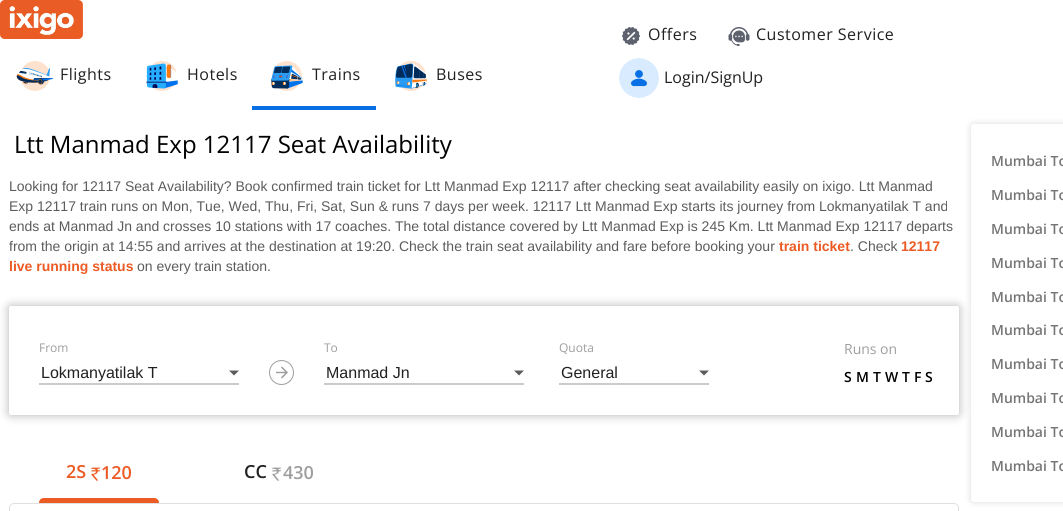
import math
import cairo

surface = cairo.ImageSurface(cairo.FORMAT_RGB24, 1063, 511)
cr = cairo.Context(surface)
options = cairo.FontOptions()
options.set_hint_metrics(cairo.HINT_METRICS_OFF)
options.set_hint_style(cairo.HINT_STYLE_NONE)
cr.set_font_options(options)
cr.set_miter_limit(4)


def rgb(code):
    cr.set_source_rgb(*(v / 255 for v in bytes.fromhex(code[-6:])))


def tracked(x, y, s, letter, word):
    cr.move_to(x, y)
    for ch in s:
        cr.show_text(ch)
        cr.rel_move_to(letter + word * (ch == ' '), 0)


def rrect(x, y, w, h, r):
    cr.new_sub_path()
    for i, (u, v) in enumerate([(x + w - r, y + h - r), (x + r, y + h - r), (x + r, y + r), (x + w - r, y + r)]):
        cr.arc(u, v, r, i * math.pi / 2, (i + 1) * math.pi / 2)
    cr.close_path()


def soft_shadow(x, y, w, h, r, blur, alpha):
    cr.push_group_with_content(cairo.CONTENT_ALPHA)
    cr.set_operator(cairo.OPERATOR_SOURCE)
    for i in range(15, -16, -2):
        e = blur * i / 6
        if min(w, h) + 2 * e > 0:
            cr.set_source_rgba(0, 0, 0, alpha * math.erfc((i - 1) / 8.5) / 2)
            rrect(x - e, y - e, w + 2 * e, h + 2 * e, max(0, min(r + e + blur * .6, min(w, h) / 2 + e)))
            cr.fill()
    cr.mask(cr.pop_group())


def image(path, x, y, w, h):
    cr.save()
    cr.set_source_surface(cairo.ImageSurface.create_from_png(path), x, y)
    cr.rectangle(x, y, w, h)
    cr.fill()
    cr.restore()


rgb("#ffffff")
cr.paint()
image("img/1.png", 0, 0, 83, 39)
image("img/2.png", 16, 61, 38, 30)
image("img/3.png", 146, 61, 32, 30)
rgb("#0770e4")
cr.rectangle(252, 106, 124, 4)
cr.fill()
image("img/4.png", 271, 61, 32, 30)
image("img/5.png", 395, 61, 32, 30)
image("img/6.png", 622, 27, 18, 18)
image("img/7.png", 728, 27, 22, 19)
image("img/8.png", 619, 58, 40, 40)
rgb("#000000")
soft_shadow(971, 124, 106, 378, 3, 3.5, 0.15)
rgb("#ffffff")
rrect(971, 124, 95, 378, 3)
cr.fill()
rgb("#000000")
soft_shadow(9, 306, 950, 109, 2, 5, 0.3)
rgb("#ffffff")
rrect(9, 306, 950, 109, 2)
cr.fill()
rgb("#cbcbcb")
cr.rectangle(39, 383, 200, 2)
cr.fill()
rgb("#5c5c5c")
cr.new_path()
cr.move_to(229, 370.5)
cr.line_to(239, 370.5)
cr.line_to(234, 375.5)
cr.close_path()
cr.fill()
cr.arc(281.5, 372.5, 12, 0, 2 * math.pi)
rgb("#9e9e9e")
cr.set_line_width(1)
cr.stroke()
image("img/9.png", 276, 366, 12, 13)
rgb("#cbcbcb")
cr.rectangle(324, 383, 200, 2)
cr.fill()
rgb("#5c5c5c")
cr.new_path()
cr.move_to(514, 370.5)
cr.line_to(524, 370.5)
cr.line_to(519, 375.5)
cr.close_path()
cr.fill()
rgb("#cbcbcb")
cr.rectangle(559, 383, 150, 2)
cr.fill()
rgb("#5c5c5c")
cr.new_path()
cr.move_to(699, 370.5)
cr.line_to(709, 370.5)
cr.line_to(704, 375.5)
cr.close_path()
cr.fill()
image("img/10.png", 91, 467, 10, 14)
rgb("#ec5b24")
cr.new_path()
cr.move_to(44, 498)
cr.line_to(154, 498)
cr.curve_to(157, 498, 159, 500, 159, 503)
cr.line_to(39, 503)
cr.curve_to(39, 500, 41, 498, 44, 498)
cr.close_path()
cr.fill()
image("img/11.png", 272, 467, 9, 14)
rrect(9.5, 503.5, 949, 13, 4.5)
rgb("#e0e0e0")
cr.stroke()
cr.select_font_face("Open Sans")
cr.set_font_size(16)
rgb("#212121")
for x, y, s in [
    (60, 80, "Flights"),
    (187, 80, "Hotels"),
    (312, 80, "Trains"),
    (436, 80, "Buses"),
    (648, 40, "Offers"),
    (756, 40, "Customer Service"),
]:
    tracked(x, y, s, 0.5, 0)
cr.move_to(664, 83)
cr.show_text("Login/SignUp")
cr.set_font_size(24)
rgb("#000000")
cr.move_to(14, 153)
cr.show_text("Ltt Manmad Exp 12117 Seat Availability")
cr.select_font_face("Liberation Sans")
cr.set_font_size(14)
rgb("#5c5c5c")
for x, y, s in [
    (9, 191, "Looking for 12117 Seat Availability? Book confirmed train ticket for Ltt Manmad Exp 12117 after checking seat availability easily on ixigo. Ltt Manmad"),
    (9, 211, "Exp 12117 train runs on Mon, Tue, Wed, Thu, Fri, Sat, Sun & runs 7 days per week. 12117 Ltt Manmad Exp starts its journey from Lokmanyatilak T and"),
    (9, 231, "ends at Manmad Jn and crosses 10 stations with 17 coaches. The total distance covered by Ltt Manmad Exp is 245 Km. Ltt Manmad Exp 12117 departs"),
    (9, 251, "from the origin at 14:55 and arrives at the destination at 19:20. Check the train seat availability and fare before booking your"),
]:
    cr.move_to(x, y)
    cr.show_text(s)
cr.select_font_face("Liberation Sans", cairo.FONT_SLANT_NORMAL, cairo.FONT_WEIGHT_BOLD)
rgb("#ec5b24")
cr.move_to(779, 251)
cr.show_text("train ticket")
cr.select_font_face("Liberation Sans")
rgb("#5c5c5c")
cr.move_to(850, 251)
cr.show_text(". Check")
cr.select_font_face("Liberation Sans", cairo.FONT_SLANT_NORMAL, cairo.FONT_WEIGHT_BOLD)
rgb("#ec5b24")
cr.move_to(901, 251)
cr.show_text("12117")
cr.move_to(9, 271)
cr.show_text("live running status")
cr.select_font_face("Liberation Sans")
rgb("#5c5c5c")
cr.move_to(137, 271)
cr.show_text("on every train station.")
cr.select_font_face("Open Sans")
cr.set_font_size(12)
rgb("#9e9e9e")
cr.move_to(39, 352)
cr.show_text("From")
cr.select_font_face("Liberation Sans")
cr.set_font_size(16)
rgb("#212121")
cr.move_to(41, 378)
cr.show_text("Lokmanyatilak T")
cr.select_font_face("Open Sans")
cr.set_font_size(12)
rgb("#9e9e9e")
cr.move_to(324, 352)
cr.show_text("To")
cr.select_font_face("Liberation Sans")
cr.set_font_size(16)
rgb("#212121")
cr.move_to(326, 378)
cr.show_text("Manmad Jn")
cr.select_font_face("Open Sans")
cr.set_font_size(12)
rgb("#9e9e9e")
cr.move_to(559, 352)
cr.show_text("Quota")
cr.select_font_face("Liberation Sans")
cr.set_font_size(16)
rgb("#212121")
cr.move_to(561, 378)
cr.show_text("General")
cr.select_font_face("Open Sans")
cr.set_font_size(14)
rgb("#9e9e9e")
cr.move_to(844, 354)
cr.show_text("Runs on")
cr.select_font_face("Open Sans SemiBold")
rgb("#000000")
for x, y, s in [
    (844, 382, "S"),
    (856, 382, "M"),
    (873, 382, "T"),
    (885, 382, "W"),
    (902, 382, "T"),
    (914, 382, "F"),
    (925, 382, "S"),
]:
    cr.move_to(x, y)
    cr.show_text(s)
cr.set_font_size(18)
rgb("#ec5b24")
cr.move_to(66, 478)
cr.show_text("2S")
cr.move_to(101, 479)
cr.show_text("120")
rgb("#212121")
cr.move_to(244, 478)
cr.show_text("CC")
rgb("#9e9e9e")
cr.move_to(283, 479)
cr.show_text("430")
cr.set_font_size(14)
rgb("#757575")
for x, y, s in [
    (991, 166, "Mumbai To"),
    (991, 200, "Mumbai To"),
    (991, 234, "Mumbai To"),
    (991, 268, "Mumbai To"),
    (991, 302, "Mumbai To"),
    (991, 335, "Mumbai To"),
    (991, 369, "Mumbai To"),
    (991, 403, "Mumbai To"),
    (991, 437, "Mumbai To"),
    (991, 471, "Mumbai To"),
]:
    cr.move_to(x, y)
    cr.show_text(s)
surface.write_to_png("page.png")
